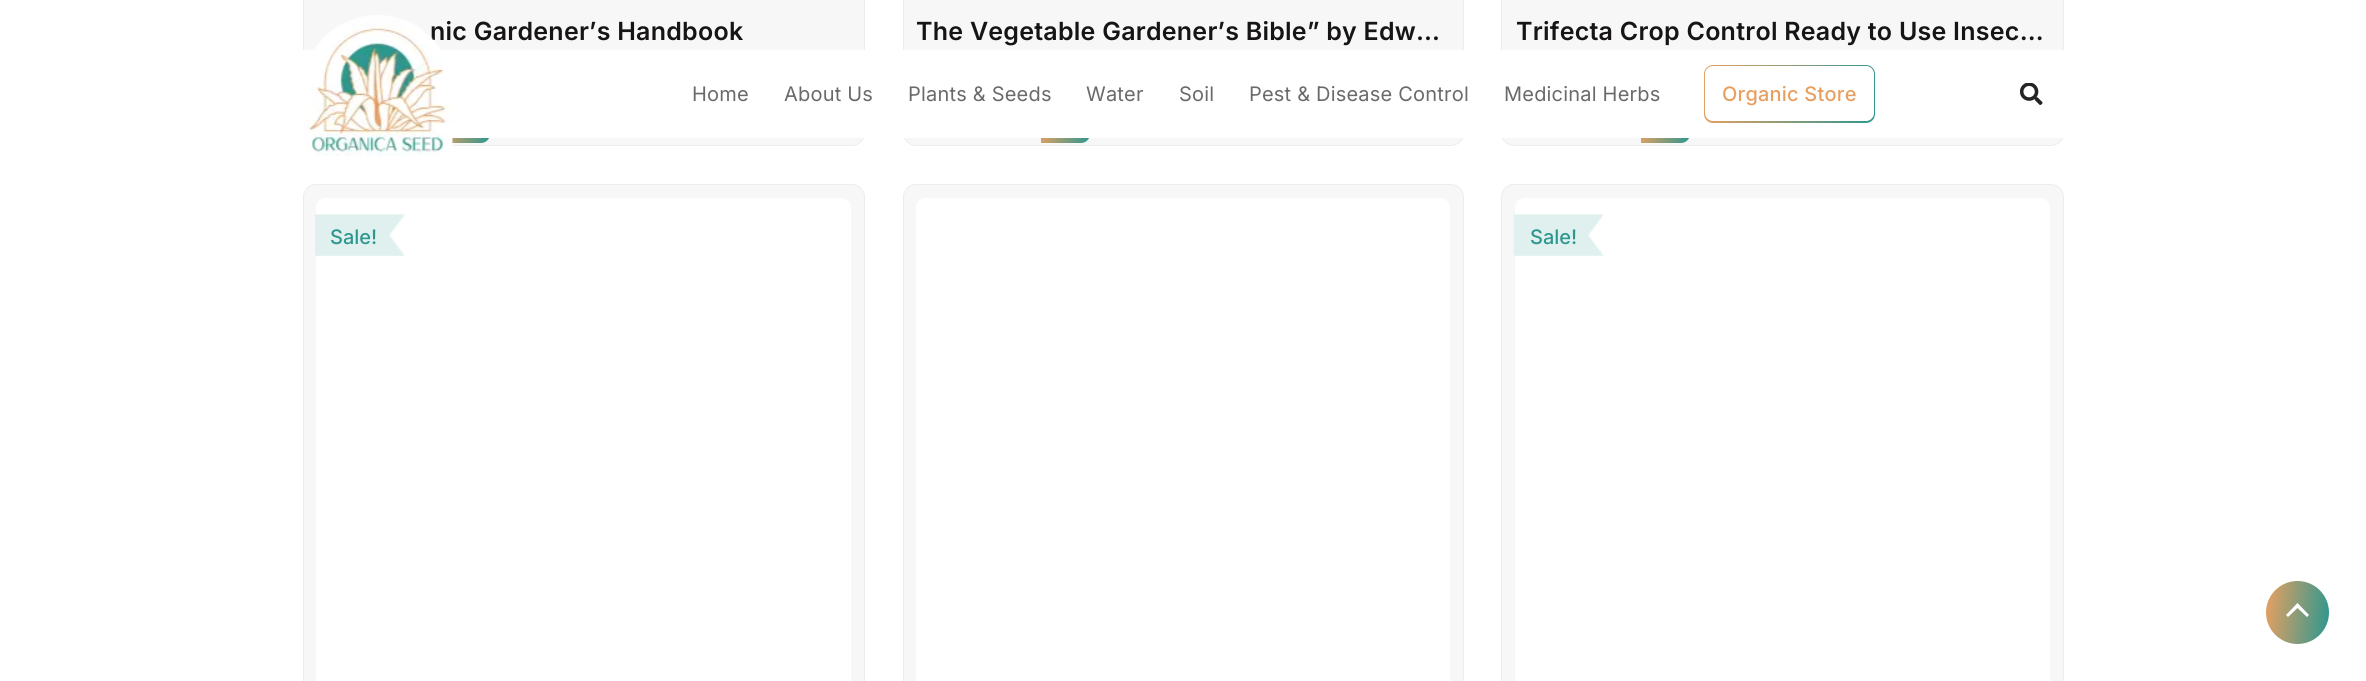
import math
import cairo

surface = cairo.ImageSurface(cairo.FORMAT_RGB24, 2366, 681)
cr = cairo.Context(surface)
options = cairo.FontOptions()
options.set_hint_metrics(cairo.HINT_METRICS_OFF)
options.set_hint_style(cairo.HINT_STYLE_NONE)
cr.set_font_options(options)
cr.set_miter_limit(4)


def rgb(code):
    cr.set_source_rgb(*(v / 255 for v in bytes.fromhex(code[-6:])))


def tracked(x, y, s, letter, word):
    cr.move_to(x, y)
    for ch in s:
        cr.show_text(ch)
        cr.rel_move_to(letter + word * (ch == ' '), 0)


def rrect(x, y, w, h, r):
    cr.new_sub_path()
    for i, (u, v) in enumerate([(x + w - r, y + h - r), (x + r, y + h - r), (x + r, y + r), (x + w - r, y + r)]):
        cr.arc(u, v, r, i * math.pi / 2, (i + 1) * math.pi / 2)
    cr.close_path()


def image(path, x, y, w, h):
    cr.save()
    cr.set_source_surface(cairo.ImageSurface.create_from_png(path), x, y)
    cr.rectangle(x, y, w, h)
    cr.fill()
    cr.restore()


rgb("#ffffff")
cr.paint()
rgb("#f7f7f7")
rrect(303.5, -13.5, 561, 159, 12.5)
cr.fill_preserve()
rgb("#ededed")
cr.set_line_width(1)
cr.stroke()
gradient = cairo.LinearGradient(492, 120, 439, 115)
gradient.add_color_stop_rgba(0, 0.176, 0.592, 0.561, 1)
gradient.add_color_stop_rgba(1, 0.91, 0.627, 0.38, 1)
cr.set_source(gradient)
cr.new_path()
cr.move_to(441, 93)
cr.line_to(481, 93)
cr.curve_to(486, 93, 490, 97, 490, 102)
cr.line_to(490, 134)
cr.curve_to(490, 139, 486, 143, 481, 143)
cr.line_to(441, 143)
cr.close_path()
cr.fill()
rgb("#f7f7f7")
rrect(903.5, -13.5, 560, 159, 12.5)
cr.fill_preserve()
rgb("#ededed")
cr.stroke()
gradient = cairo.LinearGradient(1092, 120, 1039, 115)
gradient.add_color_stop_rgba(0, 0.176, 0.592, 0.561, 1)
gradient.add_color_stop_rgba(1, 0.91, 0.627, 0.38, 1)
cr.set_source(gradient)
cr.new_path()
cr.move_to(1041, 93)
cr.line_to(1081, 93)
cr.curve_to(1086, 93, 1090, 97, 1090, 102)
cr.line_to(1090, 134)
cr.curve_to(1090, 139, 1086, 143, 1081, 143)
cr.line_to(1041, 143)
cr.close_path()
cr.fill()
rgb("#f7f7f7")
rrect(1501.5, -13.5, 562, 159, 12.5)
cr.fill_preserve()
rgb("#ededed")
cr.stroke()
gradient = cairo.LinearGradient(1692, 120, 1639, 115)
gradient.add_color_stop_rgba(0, 0.176, 0.592, 0.561, 1)
gradient.add_color_stop_rgba(1, 0.91, 0.627, 0.38, 1)
cr.set_source(gradient)
cr.new_path()
cr.move_to(1641, 93)
cr.line_to(1681, 93)
cr.curve_to(1686, 93, 1690, 97, 1690, 102)
cr.line_to(1690, 134)
cr.curve_to(1690, 139, 1686, 143, 1681, 143)
cr.line_to(1641, 143)
cr.close_path()
cr.fill()
rgb("#f7f7f7")
rrect(303.5, 184.5, 561, 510, 12.5)
cr.fill_preserve()
rgb("#ededed")
cr.stroke()
rgb("#ffffff")
rrect(316, 198, 535, 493, 10)
cr.fill()
image("img/1.png", 315, 214, 90, 42)
rgb("#f7f7f7")
rrect(903.5, 184.5, 560, 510, 12.5)
cr.fill_preserve()
rgb("#ededed")
cr.stroke()
rgb("#ffffff")
rrect(916, 198, 534, 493, 10)
cr.fill()
rgb("#f7f7f7")
rrect(1501.5, 184.5, 562, 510, 12.5)
cr.fill_preserve()
rgb("#ededed")
cr.stroke()
rgb("#ffffff")
rrect(1515, 198, 535, 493, 10)
cr.fill()
image("img/2.png", 1513, 214, 91, 42)
cr.rectangle(303, 50, 1761, 88)
cr.fill()
gradient = cairo.LinearGradient(1877, 102, 1702, 85)
gradient.add_color_stop_rgba(0, 0.176, 0.592, 0.561, 1)
gradient.add_color_stop_rgba(1, 0.91, 0.627, 0.38, 1)
cr.set_source(gradient)
rrect(1704, 65, 171, 58, 9)
cr.fill()
rgb("#ffffff")
rrect(1705, 66, 169, 55, 8)
cr.fill()
image("img/4.png", 2020, 83, 23, 22)
gradient = cairo.LinearGradient(2331, 616, 2264, 609)
gradient.add_color_stop_rgba(0, 0.176, 0.592, 0.561, 1)
gradient.add_color_stop_rgba(1, 0.91, 0.627, 0.38, 1)
cr.set_source(gradient)
cr.arc(2297.5, 612.5, 31.5, 0, 2 * math.pi)
cr.fill()
rgb("#ffffff")
cr.new_path()
cr.move_to(2309, 615)
cr.line_to(2297.5, 603)
cr.line_to(2286, 615)
cr.line_to(2288, 617)
cr.line_to(2297.5, 608)
cr.line_to(2307, 617)
cr.close_path()
cr.fill()
cr.select_font_face("Inter SemiBold")
cr.set_font_size(25)
rgb("#161414")
for x, y, s in [
    (430, 40, "nic Gardener’s Handbook"),
    (916, 40, "The Vegetable Gardener’s Bible” by Edw…"),
    (1516, 40, "Trifecta Crop Control Ready to Use Insec…"),
]:
    tracked(x, y, s, 0.25, 0)
cr.select_font_face("Inter Medium")
cr.set_font_size(20)
rgb("#2d978f")
cr.move_to(330, 244)
cr.show_text("Sale!")
cr.move_to(1530, 244)
cr.show_text("Sale!")
image("img/3.png", 304, 15, 150, 141)
cr.select_font_face("Inter")
rgb("#6a6a6a")
for x, y, s in [
    (692, 101, "Home"),
    (784, 101, "About Us"),
    (908, 101, "Plants & Seeds"),
    (1086, 101, "Water"),
    (1179, 101, "Soil"),
    (1249, 101, "Pest & Disease Control"),
    (1504, 101, "Medicinal Herbs"),
]:
    tracked(x, y, s, 0.2, 0)
cr.select_font_face("Inter Medium")
rgb("#e8a061")
tracked(1722, 101, "Organic Store", 0.2, 0)
surface.write_to_png("page.png")
